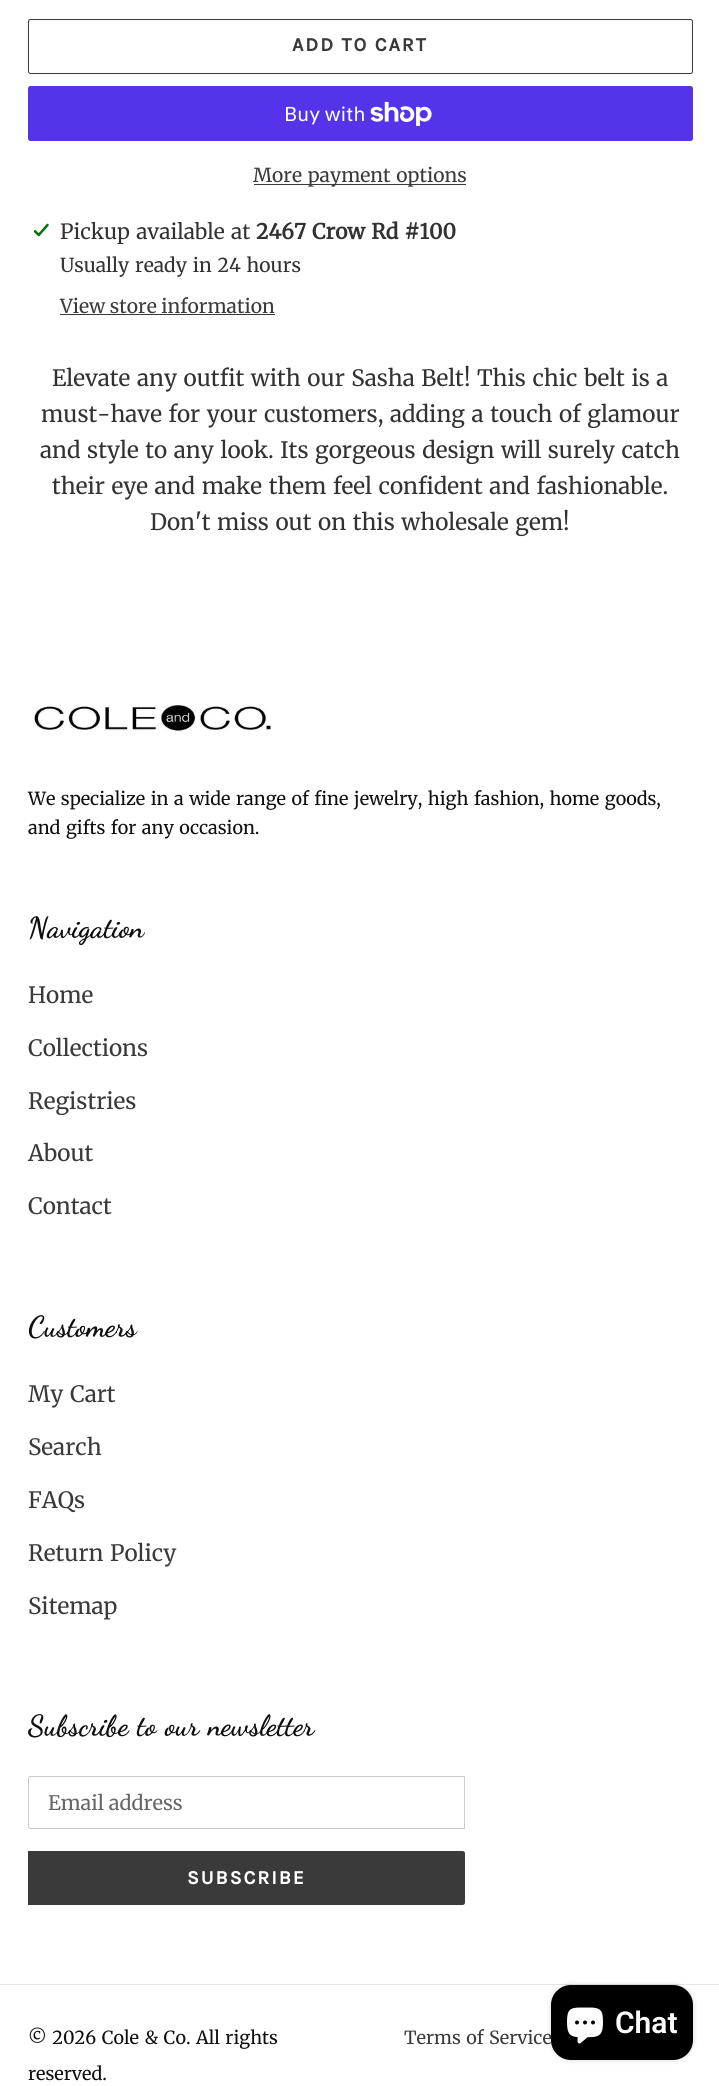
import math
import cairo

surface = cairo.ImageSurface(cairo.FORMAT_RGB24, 719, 2086)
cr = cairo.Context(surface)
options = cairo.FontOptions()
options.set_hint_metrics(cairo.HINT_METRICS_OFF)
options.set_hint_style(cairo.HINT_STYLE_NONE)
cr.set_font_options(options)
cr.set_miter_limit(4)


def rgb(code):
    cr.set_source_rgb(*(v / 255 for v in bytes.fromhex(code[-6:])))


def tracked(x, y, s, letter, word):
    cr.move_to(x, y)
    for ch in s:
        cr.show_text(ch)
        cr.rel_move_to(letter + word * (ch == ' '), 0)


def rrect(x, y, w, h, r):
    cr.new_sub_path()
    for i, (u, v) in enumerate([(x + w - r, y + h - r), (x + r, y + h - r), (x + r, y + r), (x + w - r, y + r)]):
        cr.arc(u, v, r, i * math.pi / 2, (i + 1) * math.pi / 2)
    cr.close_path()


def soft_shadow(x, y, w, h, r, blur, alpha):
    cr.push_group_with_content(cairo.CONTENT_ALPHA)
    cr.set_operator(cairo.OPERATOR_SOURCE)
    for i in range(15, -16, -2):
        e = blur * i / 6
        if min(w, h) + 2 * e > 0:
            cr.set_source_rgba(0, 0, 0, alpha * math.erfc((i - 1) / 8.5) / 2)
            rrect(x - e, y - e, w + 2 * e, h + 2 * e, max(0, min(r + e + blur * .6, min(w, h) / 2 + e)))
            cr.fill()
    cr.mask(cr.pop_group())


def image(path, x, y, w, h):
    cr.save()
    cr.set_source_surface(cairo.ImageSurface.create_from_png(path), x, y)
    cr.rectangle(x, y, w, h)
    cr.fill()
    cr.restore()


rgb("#ffffff")
cr.paint()
rrect(28.5, 19.5, 664, 54, 2)
rgb("#3a3a3a")
cr.set_line_width(1)
cr.stroke()
rgb("#5433eb")
rrect(28, 86, 665, 55, 2.5)
cr.fill()
image("img/1.png", 370, 101, 62, 25)
rgb("#3a3a3a")
cr.rectangle(254, 184, 212, 1)
cr.fill()
image("img/2.png", 34, 223, 15, 14)
cr.rectangle(60, 314, 215, 1)
cr.fill()
image("img/3.png", 33, 704, 239, 27)
cr.new_path()
cr.move_to(30.5, 1776.5)
cr.line_to(464.5, 1776.5)
cr.line_to(464.5, 1828.5)
cr.line_to(30.5, 1828.5)
cr.curve_to(29.5, 1828.5, 28.5, 1827.5, 28.5, 1826.5)
cr.line_to(28.5, 1778.5)
cr.curve_to(28.5, 1777.5, 29.5, 1776.5, 30.5, 1776.5)
cr.close_path()
rgb("#cccccc")
cr.stroke()
rgb("#3a3a3a")
cr.new_path()
cr.move_to(28, 1851)
cr.line_to(462.5, 1851)
cr.curve_to(464, 1851, 465, 1852, 465, 1853.5)
cr.line_to(465, 1902.5)
cr.curve_to(465, 1904, 464, 1905, 462.5, 1905)
cr.line_to(28, 1905)
cr.close_path()
cr.fill()
rgb("#e6e6e6")
cr.rectangle(0, 1984, 719, 1)
cr.fill()
rgb("#000000")
soft_shadow(551, 1985, 142, 75, 20, 3, 0.15)
rgb("#000000")
rrect(551, 1985, 142, 75, 20)
cr.fill()
image("img/4.png", 567, 2007, 36, 37)
cr.select_font_face("Karla", cairo.FONT_SLANT_NORMAL, cairo.FONT_WEIGHT_BOLD)
cr.set_font_size(19.25)
rgb("#3a3a3a")
tracked(292, 51, "ADD TO CART", 1.9, 0)
cr.select_font_face("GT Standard")
cr.set_font_size(20)
rgb("#ffffff")
cr.move_to(284, 121)
cr.show_text("Buy with")
cr.select_font_face("Merriweather Light")
cr.set_font_size(19.25)
rgb("#3a3a3a")
tracked(253, 182, "More payment options", 0, 1.25)
cr.set_font_size(20.9)
rgb("#333232")
tracked(60, 239, "Pickup available at", 0, 1.25)
cr.select_font_face("Merriweather", cairo.FONT_SLANT_NORMAL, cairo.FONT_WEIGHT_BOLD)
tracked(256, 239, "2467 Crow Rd #100", 0, 1.25)
cr.select_font_face("Merriweather Light")
cr.set_font_size(19.25)
tracked(60, 272, "Usually ready in 24 hours", 0, 1.25)
rgb("#3a3a3a")
cr.move_to(60, 313)
cr.show_text("View store information")
cr.set_font_size(22.5)
rgb("#333232")
for x, y, s in [
    (52, 386, "Elevate any outfit with our Sasha Belt! This chic belt is a"),
    (41, 422, "must-have for your customers, adding a touch of glamour"),
    (40, 458, "and style to any look. Its gorgeous design will surely catch"),
    (52, 494, "their eye and make them feel confident and fashionable."),
    (150, 530, "Don't miss out on this wholesale gem!"),
]:
    tracked(x, y, s, 0, 1.25)
cr.set_font_size(18)
rgb("#0f0f0f")
tracked(28, 805, "We specialize in a wide range of fine jewelry, high fashion, home goods,", 0, 1.25)
tracked(28, 834, "and gifts for any occasion.", 0, 1.25)
cr.select_font_face("Dancing Script", cairo.FONT_SLANT_NORMAL, cairo.FONT_WEIGHT_BOLD)
cr.set_font_size(29)
cr.move_to(28, 937)
cr.show_text("Navigation")
cr.select_font_face("Merriweather Light")
cr.set_font_size(22.5)
rgb("#3a3a3a")
for x, y, s in [
    (28, 1003, "Home"),
    (28, 1056, "Collections"),
    (28, 1109, "Registries"),
    (28, 1161, "About"),
    (28, 1214, "Contact"),
]:
    cr.move_to(x, y)
    cr.show_text(s)
cr.select_font_face("Dancing Script", cairo.FONT_SLANT_NORMAL, cairo.FONT_WEIGHT_BOLD)
cr.set_font_size(29)
rgb("#0f0f0f")
cr.move_to(28, 1336)
cr.show_text("Customers")
cr.select_font_face("Merriweather Light")
cr.set_font_size(22.5)
rgb("#3a3a3a")
tracked(28, 1402, "My Cart", 0, 1.25)
cr.move_to(28, 1455)
cr.show_text("Search")
cr.move_to(28, 1508)
cr.show_text("FAQs")
tracked(28, 1561, "Return Policy", 0, 1.25)
cr.move_to(28, 1614)
cr.show_text("Sitemap")
cr.select_font_face("Dancing Script", cairo.FONT_SLANT_NORMAL, cairo.FONT_WEIGHT_BOLD)
cr.set_font_size(29)
rgb("#0f0f0f")
tracked(28, 1735, "Subscribe to our newsletter", 0, 1.25)
cr.select_font_face("Merriweather Light")
cr.set_font_size(20)
rgb("#666666")
cr.move_to(48, 1810)
cr.show_text("Email address")
cr.select_font_face("Karla", cairo.FONT_SLANT_NORMAL, cairo.FONT_WEIGHT_BOLD)
cr.set_font_size(19.25)
rgb("#ffffff")
tracked(187, 1884, "SUBSCRIBE", 1.9, 0)
cr.select_font_face("Merriweather Light")
cr.set_font_size(18)
rgb("#0f0f0f")
tracked(28, 2044, "© 2026 Cole & Co. All rights", 0, 1.25)
cr.move_to(28, 2080)
cr.show_text("reserved.")
rgb("#3a3a3a")
tracked(404, 2044, "Terms of Service", 0, 1.25)
cr.select_font_face("Roboto SemiBold")
cr.set_font_size(30)
rgb("#ffffff")
cr.move_to(615, 2033)
cr.show_text("Chat")
surface.write_to_png("page.png")
